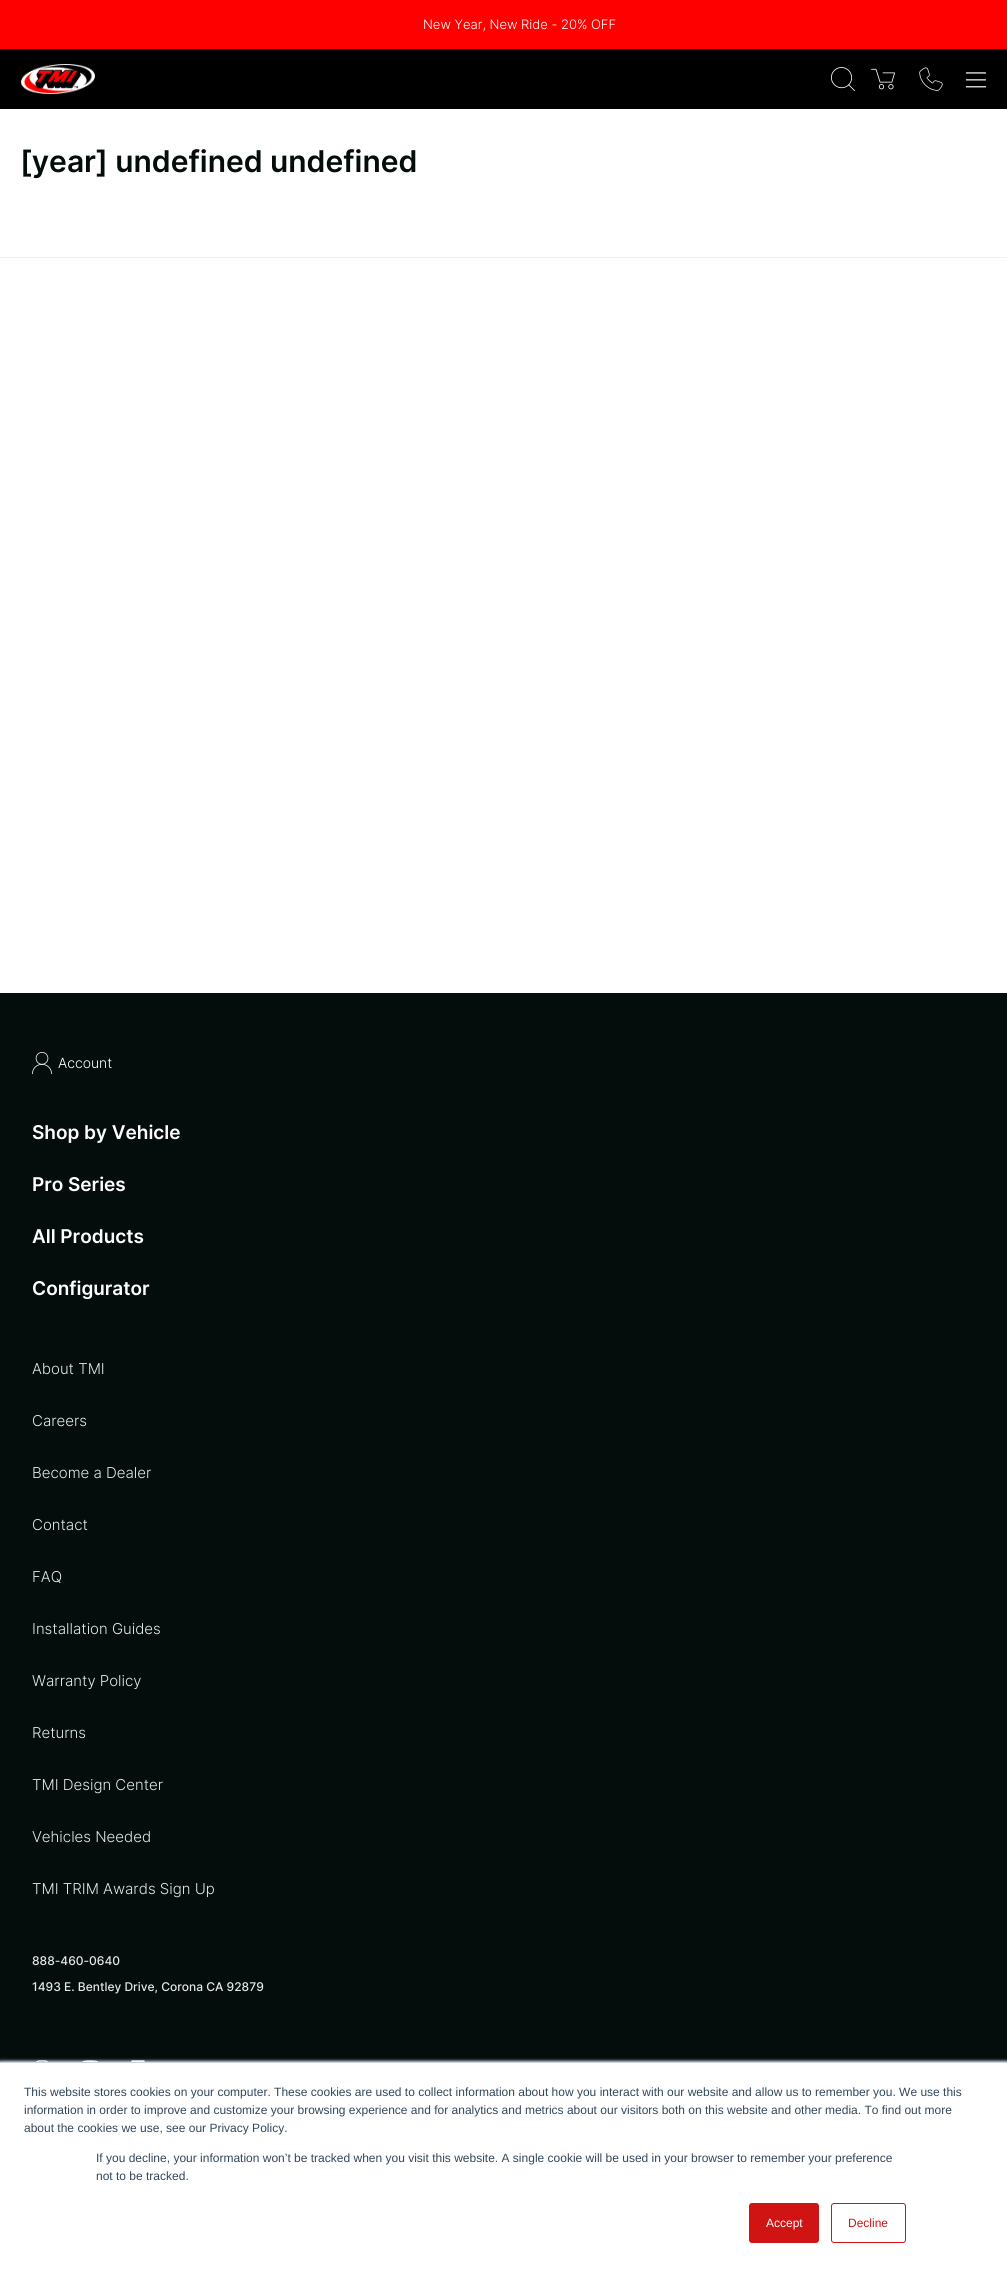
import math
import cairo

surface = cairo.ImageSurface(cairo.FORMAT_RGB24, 1007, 2269)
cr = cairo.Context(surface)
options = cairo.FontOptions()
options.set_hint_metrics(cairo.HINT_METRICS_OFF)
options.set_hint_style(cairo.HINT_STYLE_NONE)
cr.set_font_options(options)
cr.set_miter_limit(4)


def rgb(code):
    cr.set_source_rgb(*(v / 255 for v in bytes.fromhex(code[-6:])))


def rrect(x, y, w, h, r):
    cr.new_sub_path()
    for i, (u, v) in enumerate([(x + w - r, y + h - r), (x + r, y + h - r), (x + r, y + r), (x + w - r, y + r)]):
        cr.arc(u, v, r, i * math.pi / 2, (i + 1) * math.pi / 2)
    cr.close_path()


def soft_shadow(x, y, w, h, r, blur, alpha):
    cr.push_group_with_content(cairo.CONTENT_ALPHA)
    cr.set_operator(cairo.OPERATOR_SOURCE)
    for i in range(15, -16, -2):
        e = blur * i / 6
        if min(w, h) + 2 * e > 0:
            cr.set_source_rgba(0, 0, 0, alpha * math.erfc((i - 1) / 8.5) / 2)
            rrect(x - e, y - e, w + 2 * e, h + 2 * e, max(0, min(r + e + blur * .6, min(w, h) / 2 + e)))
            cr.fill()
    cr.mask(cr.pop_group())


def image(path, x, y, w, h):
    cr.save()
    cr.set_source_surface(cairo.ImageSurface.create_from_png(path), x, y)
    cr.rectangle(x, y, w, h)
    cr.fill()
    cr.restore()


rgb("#ffffff")
cr.paint()
rgb("#ff0000")
cr.rectangle(0, 0, 1007, 49)
cr.fill()
rgb("#000000")
cr.rectangle(0, 49, 1007, 60)
cr.fill()
image("img/1.png", 21, 64, 74, 30)
image("img/2.png", 831, 67, 24, 24)
image("img/3.png", 871, 68, 24, 22)
image("img/4.png", 919, 67, 24, 24)
image("img/5.png", 965, 72, 21, 16)
rgb("#f2f2f2")
cr.rectangle(0, 257, 1007, 1)
cr.fill()
rgb("#040c0c")
cr.rectangle(0, 993, 1007, 1069)
cr.fill()
image("img/6.png", 32, 1052, 20, 22)
image("img/7.png", 36, 2060, 12, 2)
image("img/8.png", 82, 2060, 16, 2)
image("img/9.png", 131, 2060, 14, 2)
rgb("#eaf0f6")
soft_shadow(0, 2061, 1007, 207, 0, 1.5, 1)
rgb("#ffffff")
cr.rectangle(0, 2063, 1007, 206)
cr.fill()
rgb("#cbd6e2")
cr.rectangle(0, 2062, 1007, 1)
cr.fill()
rgb("#d01414")
rrect(749.5, 2203.5, 69, 39, 2.5)
cr.fill_preserve()
cr.set_line_width(1)
cr.stroke()
rrect(831.5, 2203.5, 74, 39, 2.5)
cr.stroke()
cr.select_font_face("Inter Light")
cr.set_font_size(13)
rgb("#ffffff")
cr.move_to(423, 29)
cr.show_text("New Year, New Ride - 20% OFF")
cr.select_font_face("Inter SemiBold")
cr.set_font_size(30)
rgb("#040c0c")
cr.move_to(20, 172)
cr.show_text("[year] undefined undefined")
cr.select_font_face("Inter Light")
cr.set_font_size(14)
rgb("#ffffff")
cr.move_to(58, 1068)
cr.show_text("Account")
cr.select_font_face("Inter SemiBold")
cr.set_font_size(19)
for x, y, s in [
    (32, 1139, "Shop by Vehicle"),
    (32, 1191, "Pro Series"),
    (32, 1243, "All Products"),
    (32, 1295, "Configurator"),
]:
    cr.move_to(x, y)
    cr.show_text(s)
cr.select_font_face("Inter Light")
cr.set_font_size(15)
rgb("#e6e7e7")
for x, y, s in [
    (32, 1374, "About TMI"),
    (32, 1426, "Careers"),
    (32, 1478, "Become a Dealer"),
    (32, 1530, "Contact"),
    (32, 1582, "FAQ"),
    (32, 1634, "Installation Guides"),
    (32, 1686, "Warranty Policy"),
    (32, 1738, "Returns"),
    (32, 1790, "TMI Design Center"),
    (32, 1842, "Vehicles Needed"),
    (32, 1894, "TMI TRIM Awards Sign Up"),
]:
    cr.move_to(x, y)
    cr.show_text(s)
cr.select_font_face("Inter Medium")
cr.set_font_size(12)
cr.move_to(32, 1965)
cr.show_text("888-460-0640")
cr.move_to(32, 1991)
cr.show_text("1493 E. Bentley Drive, Corona CA 92879")
cr.select_font_face("Liberation Sans")
rgb("#33475b")
for x, y, s in [
    (24, 2096, "This website stores cookies on your computer. These cookies are used to collect information about how you interact with our website and allow us to remember you. We use this"),
    (24, 2114, "information in order to improve and customize your browsing experience and for analytics and metrics about our visitors both on this website and other media. To find out more"),
    (24, 2132, "about the cookies we use, see our Privacy Policy."),
    (96, 2162, "If you decline, your information won’t be tracked when you visit this website. A single cookie will be used in your browser to remember your preference"),
    (96, 2180, "not to be tracked."),
]:
    cr.move_to(x, y)
    cr.show_text(s)
rgb("#ffffff")
cr.move_to(766, 2227)
cr.show_text("Accept")
rgb("#d01414")
cr.move_to(848, 2227)
cr.show_text("Decline")
surface.write_to_png("page.png")
